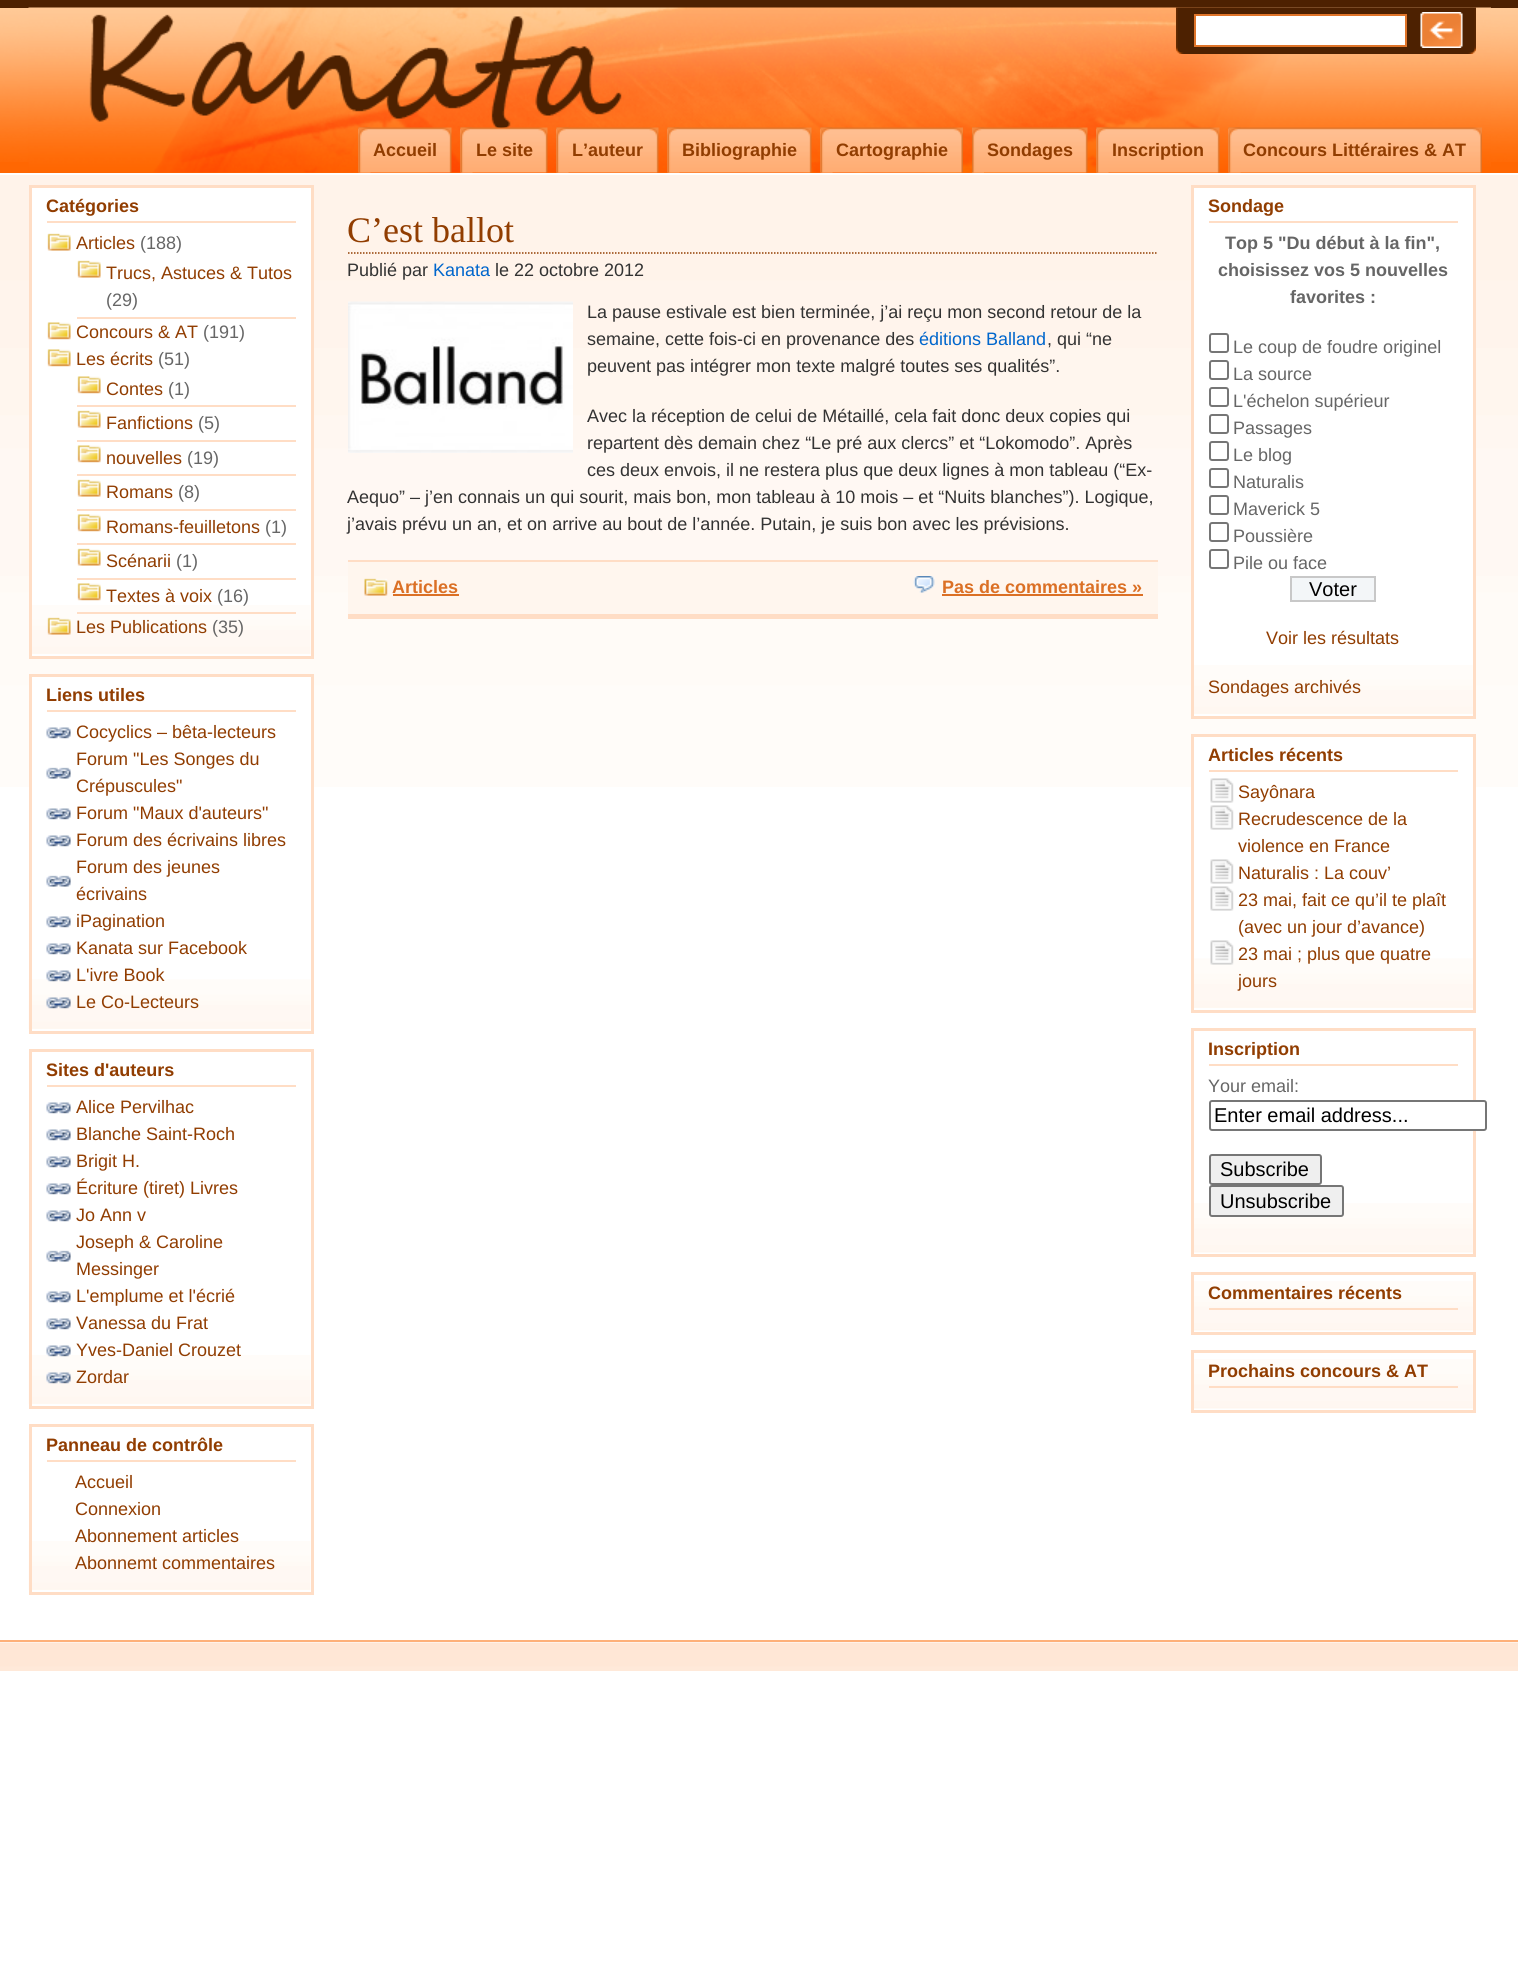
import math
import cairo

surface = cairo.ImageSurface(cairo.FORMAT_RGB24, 1518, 1970)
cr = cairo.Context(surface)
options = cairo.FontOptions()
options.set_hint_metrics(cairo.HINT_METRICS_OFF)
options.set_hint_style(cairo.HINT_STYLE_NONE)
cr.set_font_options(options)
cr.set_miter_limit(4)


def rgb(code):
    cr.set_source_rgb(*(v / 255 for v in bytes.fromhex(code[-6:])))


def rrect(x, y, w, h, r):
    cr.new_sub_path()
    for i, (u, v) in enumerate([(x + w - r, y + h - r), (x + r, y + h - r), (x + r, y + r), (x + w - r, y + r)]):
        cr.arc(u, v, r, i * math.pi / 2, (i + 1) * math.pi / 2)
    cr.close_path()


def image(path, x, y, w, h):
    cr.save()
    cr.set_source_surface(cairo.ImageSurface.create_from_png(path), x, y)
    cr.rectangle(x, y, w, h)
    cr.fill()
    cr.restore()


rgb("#ffffff")
cr.paint()
rgb("#ff6702")
cr.rectangle(0, 162, 1518, 11)
cr.fill()
image("img/1.png", 0, 8, 1518, 154)
rgb("#4d2101")
cr.rectangle(0, 0, 1518, 8)
cr.fill()
image("img/2.png", 28, 7, 1463, 166)
image("img/3.png", 1176, 7, 300, 47)
rgb("#ffffff")
cr.rectangle(1195, 15, 211, 31)
cr.fill_preserve()
rgb("#df7429")
cr.stroke()
image("img/4.png", 1420, 12, 43, 36)
image("img/5.png", 358, 127, 94, 46)
image("img/6.png", 358, 127, 13, 46)
image("img/7.png", 460, 127, 88, 46)
image("img/8.png", 460, 127, 13, 46)
image("img/9.png", 556, 127, 103, 46)
image("img/10.png", 556, 127, 13, 46)
image("img/11.png", 667, 127, 145, 46)
image("img/12.png", 667, 127, 13, 46)
image("img/13.png", 820, 127, 143, 46)
image("img/14.png", 820, 127, 13, 46)
image("img/15.png", 972, 127, 116, 46)
image("img/16.png", 972, 127, 12, 46)
image("img/17.png", 1096, 127, 124, 46)
image("img/18.png", 1096, 127, 13, 46)
image("img/19.png", 1228, 127, 254, 46)
image("img/20.png", 1228, 127, 13, 46)
image("img/21.png", 0, 175, 1518, 612)
rgb("#ffffff")
cr.rectangle(32, 188, 279, 468)
cr.fill()
image("img/22.png", 32, 605, 279, 49)
cr.rectangle(30.5, 186.5, 282, 471)
rgb("#ffddc5")
cr.set_line_width(3)
cr.stroke()
cr.rectangle(47, 221, 249, 2)
cr.fill()
image("img/23.png", 47, 233, 24, 18)
image("img/23.png", 77, 260, 24, 18)
cr.rectangle(77, 317, 219, 2)
cr.fill()
image("img/24.png", 47, 322, 24, 18)
image("img/24.png", 47, 349, 24, 18)
image("img/24.png", 77, 376, 24, 18)
cr.rectangle(77, 405, 219, 2)
cr.fill()
image("img/23.png", 77, 410, 24, 18)
cr.rectangle(77, 440, 219, 2)
cr.fill()
image("img/24.png", 77, 445, 24, 18)
cr.rectangle(77, 474, 219, 2)
cr.fill()
image("img/23.png", 77, 479, 24, 18)
cr.rectangle(77, 509, 219, 2)
cr.fill()
image("img/24.png", 77, 514, 24, 18)
cr.rectangle(77, 543, 219, 2)
cr.fill()
image("img/23.png", 77, 548, 24, 18)
cr.rectangle(77, 578, 219, 2)
cr.fill()
image("img/24.png", 77, 583, 24, 18)
cr.rectangle(77, 612, 219, 2)
cr.fill()
image("img/25.png", 47, 617, 24, 18)
rgb("#ffffff")
cr.rectangle(32, 677, 279, 110)
cr.fill()
image("img/26.png", 28, 979, 283, 50)
cr.rectangle(30.5, 675.5, 282, 357)
rgb("#ffddc5")
cr.stroke()
cr.rectangle(47, 710, 249, 2)
cr.fill()
image("img/27.png", 46, 727, 25, 12)
image("img/28.png", 46, 767, 25, 12)
image("img/27.png", 46, 808, 25, 12)
image("img/27.png", 46, 835, 25, 12)
image("img/28.png", 46, 875, 25, 12)
image("img/27.png", 46, 916, 25, 12)
image("img/27.png", 46, 943, 25, 12)
image("img/29.png", 46, 970, 25, 12)
image("img/30.png", 46, 997, 25, 12)
image("img/31.png", 28, 1355, 283, 49)
cr.rectangle(30.5, 1050.5, 282, 357)
cr.stroke()
cr.rectangle(47, 1085, 249, 2)
cr.fill()
image("img/27.png", 46, 1102, 25, 12)
image("img/27.png", 46, 1129, 25, 12)
image("img/27.png", 46, 1156, 25, 12)
image("img/27.png", 46, 1183, 25, 12)
image("img/27.png", 46, 1210, 25, 12)
image("img/28.png", 46, 1250, 25, 12)
image("img/27.png", 46, 1291, 25, 12)
image("img/27.png", 46, 1318, 25, 12)
image("img/32.png", 46, 1345, 25, 12)
image("img/30.png", 46, 1372, 25, 12)
image("img/31.png", 28, 1541, 283, 49)
cr.rectangle(30.5, 1425.5, 282, 168)
cr.stroke()
cr.rectangle(47, 1460, 249, 2)
cr.fill()
cr.new_path()
cr.move_to(348, 253)
cr.line_to(1158, 253)
rgb("#913d01")
cr.set_line_width(1.5)
cr.set_dash([1.5, 1.5])
cr.stroke()
image("img/33.png", 348, 301, 225, 152)
for x, y, w, h, color in [
    (348, 562, 810, 52, "#fff6ee"),
    (348, 560, 810, 2, "#ffddc5"),
    (348, 614, 810, 5, "#ffddc5"),
]:
    rgb(color)
    cr.rectangle(x, y, w, h)
    cr.fill()
image("img/34.png", 364, 578, 24, 18)
rgb("#db7025")
cr.rectangle(393, 594, 66, 2)
cr.fill()
image("img/35.png", 913, 576, 22, 17)
cr.rectangle(942, 594, 201, 2)
cr.fill()
rgb("#ffffff")
cr.rectangle(1194, 188, 279, 528)
cr.fill()
image("img/36.png", 1194, 665, 279, 49)
cr.rectangle(1192.5, 186.5, 282, 531)
rgb("#ffddc5")
cr.set_line_width(3)
cr.set_dash([])
cr.stroke()
cr.rectangle(1209, 221, 249, 2)
cr.fill()
rrect(1210, 334, 18, 18, 2)
rgb("#767676")
cr.set_line_width(2)
cr.stroke()
rrect(1210, 361, 18, 18, 2)
cr.stroke()
rrect(1210, 388, 18, 18, 2)
cr.stroke()
rrect(1210, 415, 18, 18, 2)
cr.stroke()
rrect(1210, 442, 18, 18, 2)
cr.stroke()
rrect(1210, 469, 18, 18, 2)
cr.stroke()
rrect(1210, 496, 18, 18, 2)
cr.stroke()
rrect(1210, 523, 18, 18, 2)
cr.stroke()
rrect(1210, 550, 18, 18, 2)
cr.stroke()
rgb("#f3f6f8")
cr.rectangle(1291, 577, 84, 24)
cr.fill_preserve()
rgb("#c8c8c8")
cr.stroke()
rgb("#ffffff")
cr.rectangle(1194, 737, 279, 50)
cr.fill()
image("img/37.png", 1194, 958, 279, 50)
cr.rectangle(1192.5, 735.5, 282, 276)
rgb("#ffddc5")
cr.set_line_width(3)
cr.stroke()
cr.rectangle(1209, 770, 249, 2)
cr.fill()
image("img/38.png", 1210, 778, 24, 25)
image("img/38.png", 1210, 805, 24, 25)
image("img/38.png", 1210, 859, 24, 25)
image("img/38.png", 1210, 886, 24, 25)
image("img/39.png", 1210, 940, 24, 25)
image("img/40.png", 1194, 1203, 279, 50)
cr.rectangle(1192.5, 1029.5, 282, 226)
cr.stroke()
cr.rectangle(1209, 1064, 249, 2)
cr.fill()
rgb("#ffffff")
rrect(1210, 1101, 276, 29, 2)
cr.fill_preserve()
rgb("#767676")
cr.set_line_width(2)
cr.stroke()
rgb("#efefef")
rrect(1210, 1155, 111, 29, 2)
cr.fill_preserve()
rgb("#767676")
cr.stroke()
rgb("#efefef")
rrect(1210, 1186, 133, 30, 2)
cr.fill_preserve()
rgb("#767676")
cr.stroke()
image("img/41.png", 1194, 1281, 279, 50)
cr.rectangle(1192.5, 1273.5, 282, 60)
rgb("#ffddc5")
cr.set_line_width(3)
cr.stroke()
cr.rectangle(1209, 1308, 249, 2)
cr.fill()
image("img/40.png", 1194, 1359, 279, 50)
cr.rectangle(1192.5, 1351.5, 282, 60)
cr.stroke()
cr.rectangle(1209, 1386, 249, 2)
cr.fill()
image("img/42.png", 0, 1642, 1518, 29)
rgb("#feb078")
cr.rectangle(0, 1640, 1518, 2)
cr.fill()
cr.select_font_face("Liberation Sans", cairo.FONT_SLANT_NORMAL, cairo.FONT_WEIGHT_BOLD)
cr.set_font_size(18)
rgb("#913d01")
for x, y, s in [
    (373, 156, "Accueil"),
    (476, 156, "Le site"),
    (572, 156, "L’auteur"),
    (682, 156, "Bibliographie"),
    (836, 156, "Cartographie"),
    (987, 156, "Sondages"),
    (1112, 156, "Inscription"),
    (1243, 156, "Concours Littéraires & AT"),
    (46, 212, "Catégories"),
]:
    cr.move_to(x, y)
    cr.show_text(s)
cr.select_font_face("Liberation Sans")
cr.move_to(76, 249)
cr.show_text("Articles")
rgb("#666666")
cr.move_to(140, 249)
cr.show_text("(188)")
rgb("#913d01")
cr.move_to(106, 279)
cr.show_text("Trucs, Astuces & Tutos")
rgb("#666666")
cr.move_to(106, 306)
cr.show_text("(29)")
rgb("#913d01")
cr.move_to(76, 338)
cr.show_text("Concours & AT")
rgb("#666666")
cr.move_to(203, 338)
cr.show_text("(191)")
rgb("#913d01")
cr.move_to(76, 365)
cr.show_text("Les écrits")
rgb("#666666")
cr.move_to(158, 365)
cr.show_text("(51)")
rgb("#913d01")
cr.move_to(106, 395)
cr.show_text("Contes")
rgb("#666666")
cr.move_to(168, 395)
cr.show_text("(1)")
rgb("#913d01")
cr.move_to(106, 429)
cr.show_text("Fanfictions")
rgb("#666666")
cr.move_to(198, 429)
cr.show_text("(5)")
rgb("#913d01")
cr.move_to(106, 464)
cr.show_text("nouvelles")
rgb("#666666")
cr.move_to(187, 464)
cr.show_text("(19)")
rgb("#913d01")
cr.move_to(106, 498)
cr.show_text("Romans")
rgb("#666666")
cr.move_to(178, 498)
cr.show_text("(8)")
rgb("#913d01")
cr.move_to(106, 533)
cr.show_text("Romans-feuilletons")
rgb("#666666")
cr.move_to(265, 533)
cr.show_text("(1)")
rgb("#913d01")
cr.move_to(106, 567)
cr.show_text("Scénarii")
rgb("#666666")
cr.move_to(176, 567)
cr.show_text("(1)")
rgb("#913d01")
cr.move_to(106, 602)
cr.show_text("Textes à voix")
rgb("#666666")
cr.move_to(217, 602)
cr.show_text("(16)")
rgb("#913d01")
cr.move_to(76, 633)
cr.show_text("Les Publications")
rgb("#666666")
cr.move_to(212, 633)
cr.show_text("(35)")
cr.select_font_face("Liberation Sans", cairo.FONT_SLANT_NORMAL, cairo.FONT_WEIGHT_BOLD)
rgb("#913d01")
cr.move_to(46, 701)
cr.show_text("Liens utiles")
cr.select_font_face("Liberation Sans")
for x, y, s in [
    (76, 738, "Cocyclics – bêta-lecteurs"),
    (76, 765, "Forum \"Les Songes du"),
    (76, 792, "Crépuscules\""),
    (76, 819, "Forum \"Maux d'auteurs\""),
    (76, 846, "Forum des écrivains libres"),
    (76, 873, "Forum des jeunes"),
    (76, 900, "écrivains"),
    (76, 927, "iPagination"),
    (76, 954, "Kanata sur Facebook"),
    (76, 981, "L'ivre Book"),
    (76, 1008, "Le Co-Lecteurs"),
]:
    cr.move_to(x, y)
    cr.show_text(s)
cr.select_font_face("Liberation Sans", cairo.FONT_SLANT_NORMAL, cairo.FONT_WEIGHT_BOLD)
cr.move_to(46, 1076)
cr.show_text("Sites d'auteurs")
cr.select_font_face("Liberation Sans")
for x, y, s in [
    (76, 1113, "Alice Pervilhac"),
    (76, 1140, "Blanche Saint-Roch"),
    (76, 1167, "Brigit H."),
    (76, 1194, "Écriture (tiret) Livres"),
    (76, 1221, "Jo Ann v"),
    (76, 1248, "Joseph & Caroline"),
    (76, 1275, "Messinger"),
    (76, 1302, "L'emplume et l'écrié"),
    (76, 1329, "Vanessa du Frat"),
    (76, 1356, "Yves-Daniel Crouzet"),
    (76, 1383, "Zordar"),
]:
    cr.move_to(x, y)
    cr.show_text(s)
cr.select_font_face("Liberation Sans", cairo.FONT_SLANT_NORMAL, cairo.FONT_WEIGHT_BOLD)
cr.move_to(46, 1451)
cr.show_text("Panneau de contrôle")
cr.select_font_face("Liberation Sans")
for x, y, s in [
    (75, 1488, "Accueil"),
    (75, 1515, "Connexion"),
    (75, 1542, "Abonnement articles"),
    (75, 1569, "Abonnemt commentaires"),
]:
    cr.move_to(x, y)
    cr.show_text(s)
cr.select_font_face("Liberation Serif")
cr.set_font_size(36)
cr.move_to(347, 242)
cr.show_text("C’est ballot")
cr.select_font_face("Liberation Sans")
cr.set_font_size(18)
rgb("#333333")
cr.move_to(347, 276)
cr.show_text("Publié par")
rgb("#0066cc")
cr.move_to(433, 276)
cr.show_text("Kanata")
rgb("#333333")
for x, y, s in [
    (495, 276, "le 22 octobre 2012"),
    (587, 318, "La pause estivale est bien terminée, j’ai reçu mon second retour de la"),
    (587, 345, "semaine, cette fois-ci en provenance des"),
]:
    cr.move_to(x, y)
    cr.show_text(s)
rgb("#0066cc")
cr.move_to(919, 345)
cr.show_text("éditions Balland")
rgb("#333333")
for x, y, s in [
    (1047, 345, ", qui “ne"),
    (587, 372, "peuvent pas intégrer mon texte malgré toutes ses qualités”."),
    (587, 422, "Avec la réception de celui de Métaillé, cela fait donc deux copies qui"),
    (587, 449, "repartent dès demain chez “Le pré aux clercs” et “Lokomodo”. Après"),
    (587, 476, "ces deux envois, il ne restera plus que deux lignes à mon tableau (“Ex-"),
    (347, 503, "Aequo” – j’en connais un qui sourit, mais bon, mon tableau à 10 mois – et “Nuits blanches”). Logique,"),
    (347, 530, "j’avais prévu un an, et on arrive au bout de l’année. Putain, je suis bon avec les prévisions."),
]:
    cr.move_to(x, y)
    cr.show_text(s)
cr.select_font_face("Liberation Sans", cairo.FONT_SLANT_NORMAL, cairo.FONT_WEIGHT_BOLD)
rgb("#db7025")
cr.move_to(392, 593)
cr.show_text("Articles")
cr.move_to(942, 593)
cr.show_text("Pas de commentaires »")
rgb("#913d01")
cr.move_to(1208, 212)
cr.show_text("Sondage")
rgb("#666666")
for x, y, s in [
    (1225, 249, "Top 5 \"Du début à la fin\","),
    (1218, 276, "choisissez vos 5 nouvelles"),
    (1290, 303, "favorites :"),
]:
    cr.move_to(x, y)
    cr.show_text(s)
cr.select_font_face("Liberation Sans")
for x, y, s in [
    (1233, 353, "Le coup de foudre originel"),
    (1233, 380, "La source"),
    (1233, 407, "L'échelon supérieur"),
    (1233, 434, "Passages"),
    (1233, 461, "Le blog"),
    (1233, 488, "Naturalis"),
    (1233, 515, "Maverick 5"),
    (1233, 542, "Poussière"),
    (1233, 569, "Pile ou face"),
]:
    cr.move_to(x, y)
    cr.show_text(s)
cr.set_font_size(20)
rgb("#000000")
cr.move_to(1309, 596)
cr.show_text("Voter")
cr.set_font_size(18)
rgb("#913d01")
cr.move_to(1266, 644)
cr.show_text("Voir les résultats")
cr.move_to(1208, 693)
cr.show_text("Sondages archivés")
cr.select_font_face("Liberation Sans", cairo.FONT_SLANT_NORMAL, cairo.FONT_WEIGHT_BOLD)
cr.move_to(1208, 761)
cr.show_text("Articles récents")
cr.select_font_face("Liberation Sans")
for x, y, s in [
    (1238, 798, "Sayônara"),
    (1238, 825, "Recrudescence de la"),
    (1238, 852, "violence en France"),
    (1238, 879, "Naturalis : La couv’"),
    (1238, 906, "23 mai, fait ce qu’il te plaît"),
    (1238, 933, "(avec un jour d’avance)"),
    (1238, 960, "23 mai ; plus que quatre"),
    (1238, 987, "jours"),
]:
    cr.move_to(x, y)
    cr.show_text(s)
cr.select_font_face("Liberation Sans", cairo.FONT_SLANT_NORMAL, cairo.FONT_WEIGHT_BOLD)
cr.move_to(1208, 1055)
cr.show_text("Inscription")
cr.select_font_face("Liberation Sans")
rgb("#666666")
cr.move_to(1208, 1092)
cr.show_text("Your email:")
cr.set_font_size(20)
rgb("#000000")
for x, y, s in [
    (1214, 1122, "Enter email address..."),
    (1220, 1176, "Subscribe"),
    (1220, 1208, "Unsubscribe"),
]:
    cr.move_to(x, y)
    cr.show_text(s)
cr.select_font_face("Liberation Sans", cairo.FONT_SLANT_NORMAL, cairo.FONT_WEIGHT_BOLD)
cr.set_font_size(18)
rgb("#913d01")
cr.move_to(1208, 1299)
cr.show_text("Commentaires récents")
cr.move_to(1208, 1377)
cr.show_text("Prochains concours & AT")
surface.write_to_png("page.png")
